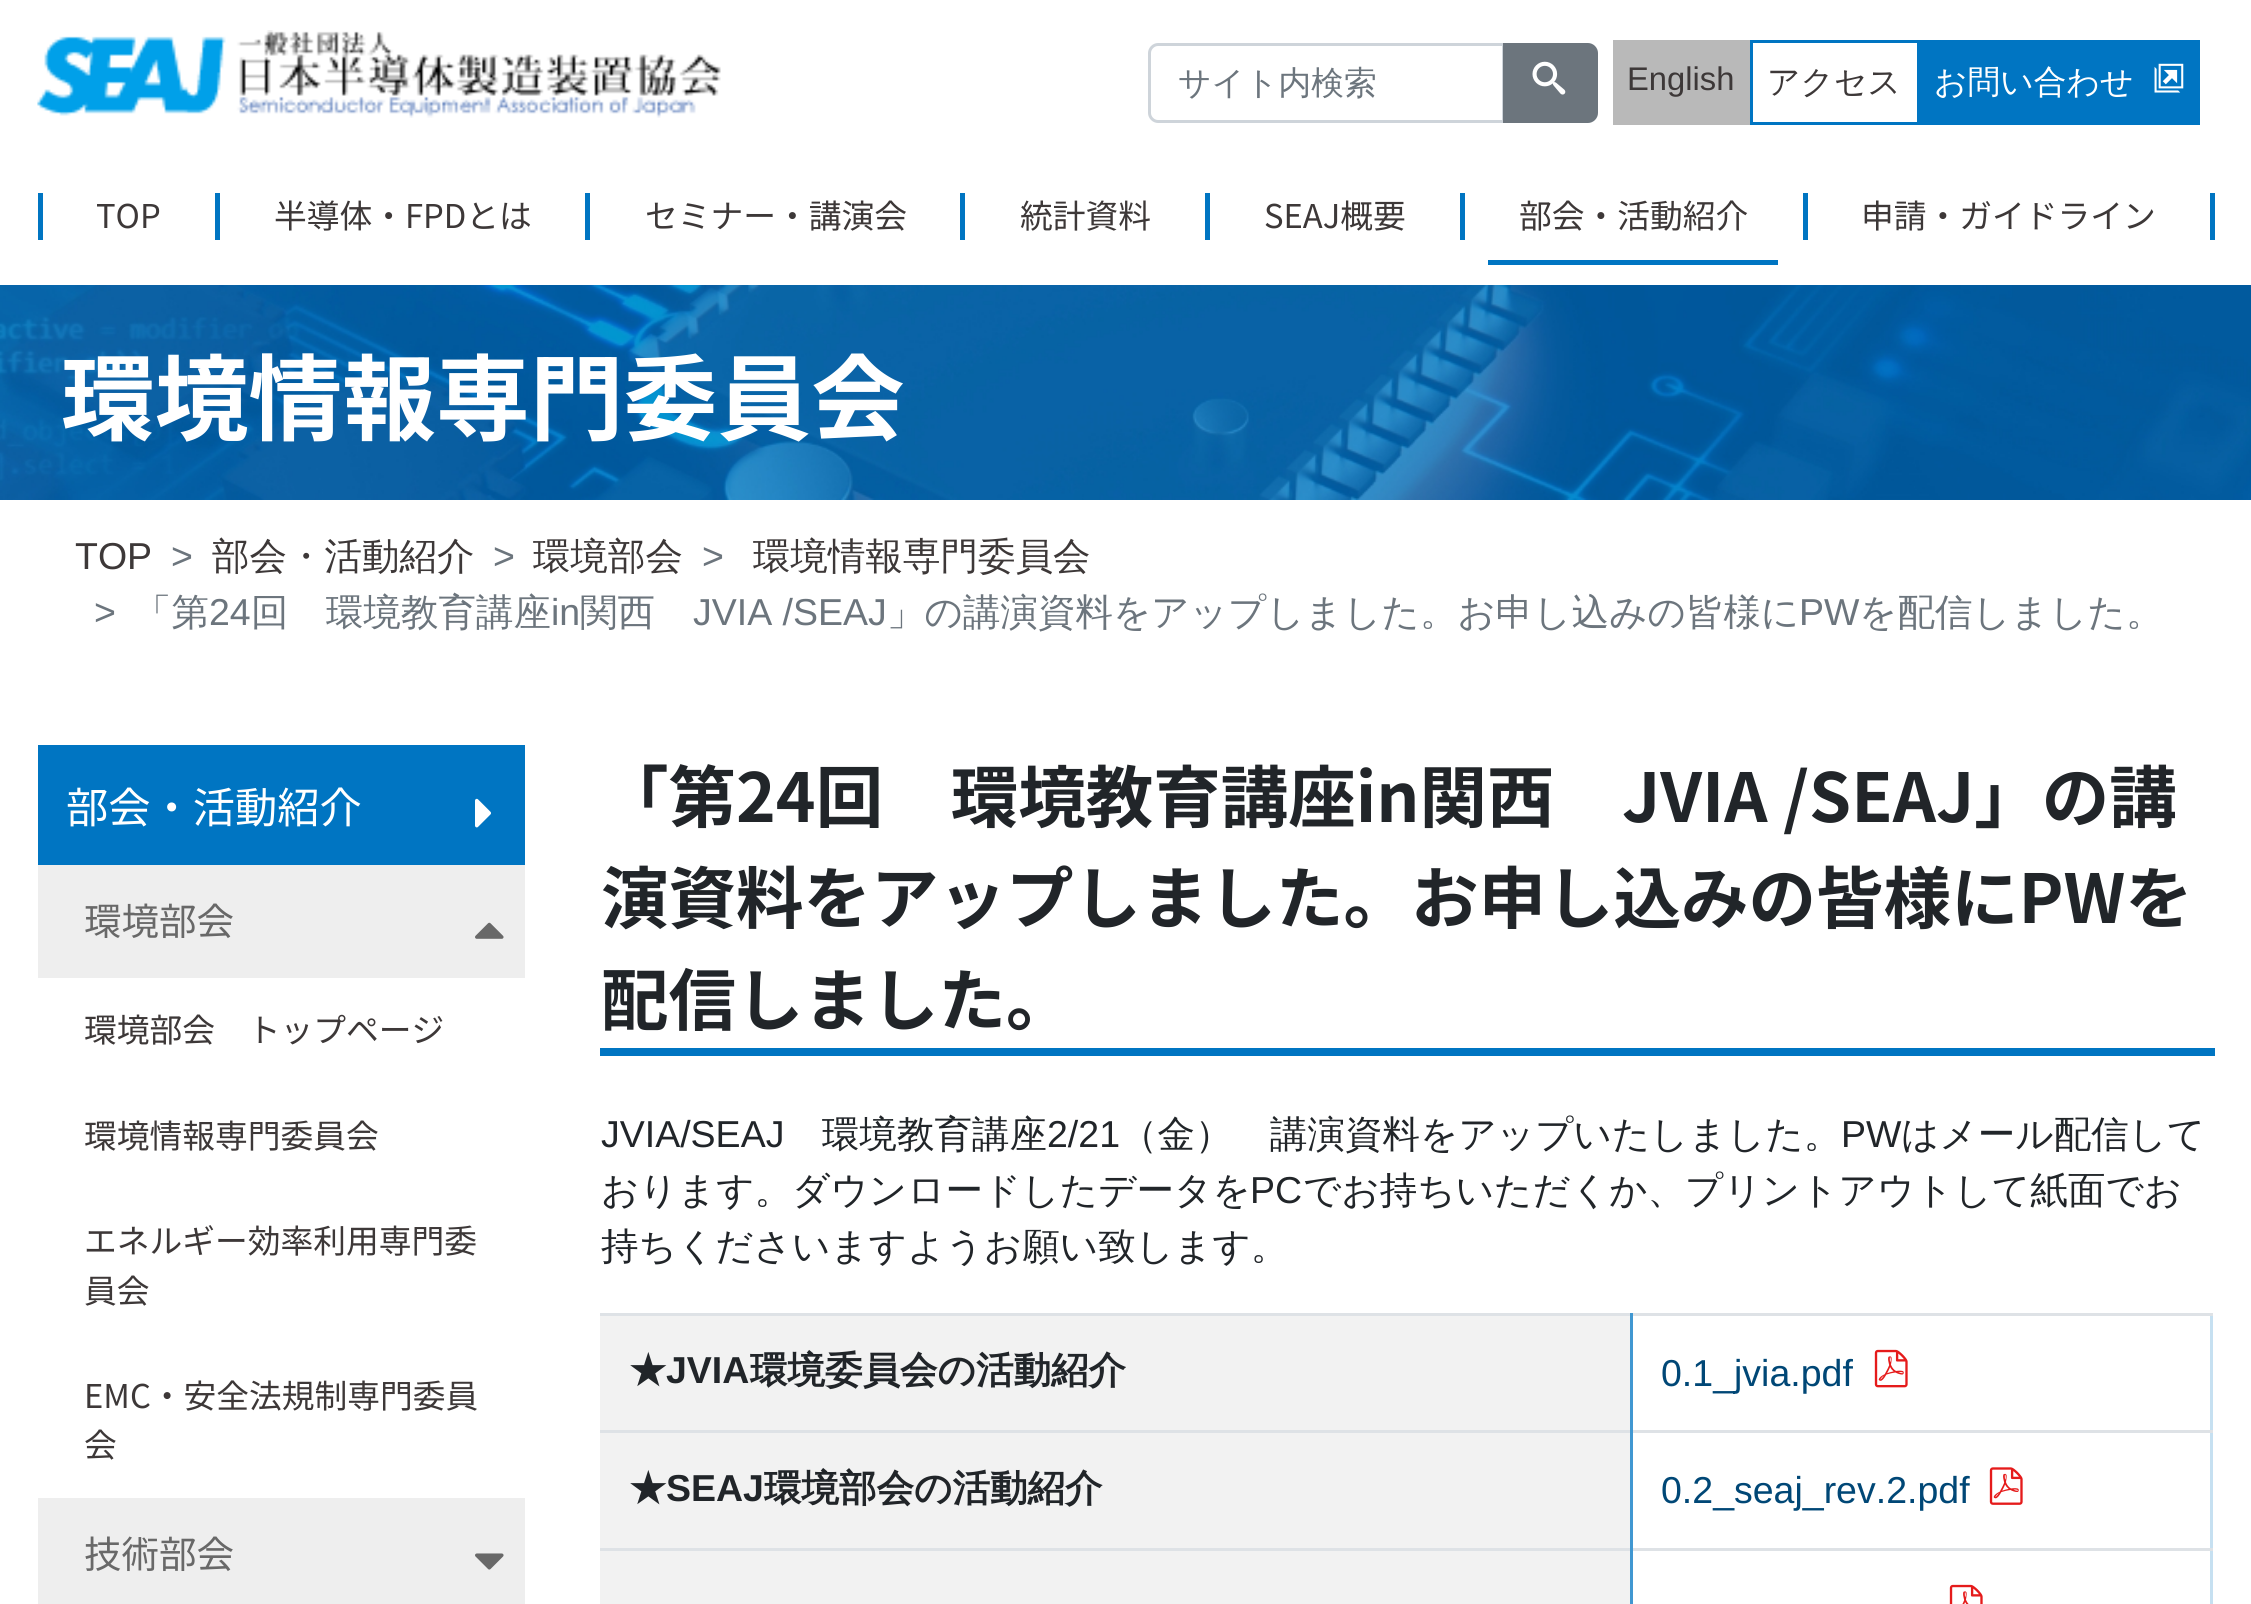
import math
import cairo

surface = cairo.ImageSurface(cairo.FORMAT_RGB24, 2251, 1604)
cr = cairo.Context(surface)
options = cairo.FontOptions()
options.set_hint_metrics(cairo.HINT_METRICS_OFF)
options.set_hint_style(cairo.HINT_STYLE_NONE)
cr.set_font_options(options)
cr.set_miter_limit(4)


def rgb(code):
    cr.set_source_rgb(*(v / 255 for v in bytes.fromhex(code[-6:])))


def image(path, x, y, w, h):
    cr.save()
    cr.set_source_surface(cairo.ImageSurface.create_from_png(path), x, y)
    cr.rectangle(x, y, w, h)
    cr.fill()
    cr.restore()


rgb("#ffffff")
cr.paint()
image("img/1.png", 37, 30, 684, 88)
cr.new_path()
cr.move_to(1158, 44.5)
cr.line_to(1503.5, 44.5)
cr.line_to(1503.5, 121.5)
cr.line_to(1158, 121.5)
cr.curve_to(1153.5, 121.5, 1149.5, 117.5, 1149.5, 113)
cr.line_to(1149.5, 53)
cr.curve_to(1149.5, 48.5, 1153.5, 44.5, 1158, 44.5)
cr.close_path()
rgb("#ced4da")
cr.set_line_width(3)
cr.stroke()
rgb("#6c757d")
cr.new_path()
cr.move_to(1504.5, 44.5)
cr.line_to(1588, 44.5)
cr.curve_to(1592.5, 44.5, 1596.5, 48.5, 1596.5, 53)
cr.line_to(1596.5, 113)
cr.curve_to(1596.5, 117.5, 1592.5, 121.5, 1588, 121.5)
cr.line_to(1504.5, 121.5)
cr.close_path()
cr.fill_preserve()
cr.stroke()
image("img/2.png", 1532, 61, 34, 34)
rgb("#b9b9b9")
cr.rectangle(1613, 40, 137, 85)
cr.fill()
cr.rectangle(1751.5, 41.5, 167, 82)
rgb("#0075c2")
cr.stroke()
cr.rectangle(1920, 40, 280, 85)
cr.fill()
image("img/3.png", 2154, 63, 30, 30)
for x, y, w, h, color in [
    (38, 193, 5, 47, "#0075c2"),
    (215, 193, 5, 47, "#0075c2"),
    (585, 193, 5, 47, "#0075c2"),
    (960, 193, 5, 47, "#0075c2"),
    (1205, 193, 5, 47, "#0075c2"),
    (1460, 193, 5, 47, "#0075c2"),
    (1488, 260, 290, 5, "#0075c2"),
    (2210, 193, 5, 47, "#0075c2"),
    (1803, 193, 5, 47, "#0075c2"),
]:
    rgb(color)
    cr.rectangle(x, y, w, h)
    cr.fill()
image("img/4.png", 0, 285, 2251, 215)
cr.rectangle(38, 745, 487, 120)
cr.fill()
image("img/5.png", 475, 798, 16, 30)
rgb("#eeeeee")
cr.rectangle(38, 865, 487, 113)
cr.fill()
image("img/6.png", 475, 922, 29, 17)
cr.rectangle(38, 1498, 487, 106)
cr.fill()
image("img/7.png", 475, 1553, 29, 17)
for x, y, w, h, color in [
    (600, 1048, 1615, 8, "#0075c2"),
    (2210, 1313, 3, 291, "#c6e0f1"),
    (600, 1316, 1030, 114, "#f2f2f2"),
    (600, 1313, 1613, 3, "#dee2e6"),
    (600, 1430, 1613, 3, "#dee2e6"),
    (600, 1548, 1613, 3, "#dee2e6"),
    (1630, 1548, 3, 56, "#4097d1"),
    (1630, 1430, 3, 120, "#4097d1"),
    (1630, 1313, 3, 120, "#4097d1"),
]:
    rgb(color)
    cr.rectangle(x, y, w, h)
    cr.fill()
image("img/8.png", 1874, 1349, 34, 39)
rgb("#f2f2f2")
cr.rectangle(600, 1433, 1030, 115)
cr.fill()
image("img/9.png", 1989, 1467, 34, 38)
cr.rectangle(600, 1551, 1030, 53)
cr.fill()
image("img/10.png", 1949, 1584, 34, 20)
cr.select_font_face("WenQuanYi Zen Hei Medium")
cr.set_font_size(32.75)
rgb("#6c757d")
cr.move_to(1178, 94)
cr.show_text("サイト内検索")
cr.select_font_face("Liberation Sans")
rgb("#3d3838")
cr.move_to(1627, 90)
cr.show_text("English")
cr.select_font_face("WenQuanYi Zen Hei Medium")
cr.move_to(1767, 93)
cr.show_text("アクセス")
rgb("#ffffff")
cr.move_to(1934, 93)
cr.show_text("お問い合わせ")
cr.select_font_face("Noto Sans JP")
rgb("#3d3838")
for x, y, s in [
    (96, 228, "TOP"),
    (274, 228, "半導体・FPDとは"),
    (645, 228, "セミナー・講演会"),
    (1020, 228, "統計資料"),
    (1264, 228, "SEAJ概要"),
    (1519, 228, "部会・活動紹介"),
    (1861, 228, "申請・ガイドライン"),
]:
    cr.move_to(x, y)
    cr.show_text(s)
cr.select_font_face("Noto Sans JP", cairo.FONT_SLANT_NORMAL, cairo.FONT_WEIGHT_BOLD)
cr.set_font_size(93.75)
rgb("#ffffff")
cr.move_to(61, 433)
cr.show_text("環境情報専門委員会")
cr.select_font_face("Liberation Sans")
cr.set_font_size(37.5)
rgb("#3d3838")
cr.move_to(75, 569)
cr.show_text("TOP")
rgb("#6c757d")
cr.move_to(171, 569)
cr.show_text(">")
cr.select_font_face("WenQuanYi Zen Hei Medium")
rgb("#3d3838")
cr.move_to(212, 569)
cr.show_text("部会・活動紹介")
cr.select_font_face("Liberation Sans")
rgb("#6c757d")
cr.move_to(493, 569)
cr.show_text(">")
cr.select_font_face("WenQuanYi Zen Hei Medium")
rgb("#3d3838")
cr.move_to(533, 569)
cr.show_text("環境部会")
cr.select_font_face("Liberation Sans")
rgb("#6c757d")
cr.move_to(702, 569)
cr.show_text(">")
cr.select_font_face("WenQuanYi Zen Hei Medium")
rgb("#3d3838")
cr.move_to(753, 569)
cr.show_text("環境情報専門委員会")
cr.select_font_face("Liberation Sans")
rgb("#6c757d")
cr.move_to(94, 625)
cr.show_text(">")
cr.select_font_face("WenQuanYi Zen Hei Medium")
cr.move_to(134, 625)
cr.show_text("「第")
cr.select_font_face("Liberation Sans")
cr.move_to(209, 625)
cr.show_text("24")
cr.select_font_face("WenQuanYi Zen Hei Medium")
cr.move_to(251, 625)
cr.show_text("回　環境教育講座")
cr.select_font_face("Liberation Sans")
cr.move_to(551, 625)
cr.show_text("in")
cr.select_font_face("WenQuanYi Zen Hei Medium")
cr.move_to(580, 625)
cr.show_text("関西")
cr.select_font_face("Liberation Sans")
cr.move_to(693, 625)
cr.show_text("JVIA /SEAJ")
cr.select_font_face("WenQuanYi Zen Hei Medium")
cr.move_to(887, 625)
cr.show_text("」の講演資料をアップしました。お申し込みの皆様に")
cr.select_font_face("Liberation Sans")
cr.move_to(1799, 625)
cr.show_text("PW")
cr.select_font_face("WenQuanYi Zen Hei Medium")
cr.move_to(1859, 625)
cr.show_text("を配信しました。")
cr.select_font_face("Noto Sans JP")
cr.set_font_size(42.25)
rgb("#ffffff")
cr.move_to(66, 823)
cr.show_text("部会・活動紹介")
cr.set_font_size(37.5)
rgb("#686868")
cr.move_to(84, 935)
cr.show_text("環境部会")
cr.set_font_size(32.75)
rgb("#3d3838")
for x, y, s in [
    (84, 1042, "環境部会　トップページ"),
    (84, 1148, "環境情報専門委員会"),
    (84, 1253, "エネルギー効率利用専門委"),
    (84, 1303, "員会"),
    (84, 1408, "EMC・安全法規制専門委員"),
    (84, 1457, "会"),
]:
    cr.move_to(x, y)
    cr.show_text(s)
cr.set_font_size(37.5)
rgb("#686868")
cr.move_to(84, 1568)
cr.show_text("技術部会")
cr.select_font_face("Noto Sans JP", cairo.FONT_SLANT_NORMAL, cairo.FONT_WEIGHT_BOLD)
cr.set_font_size(67.5)
rgb("#212529")
for x, y, s in [
    (601, 822, "「第24回　環境教育講座in関西　JVIA /SEAJ」の講"),
    (601, 923, "演資料をアップしました。お申し込みの皆様にPWを"),
    (601, 1025, "配信しました。"),
]:
    cr.move_to(x, y)
    cr.show_text(s)
cr.select_font_face("Liberation Sans")
cr.set_font_size(37.5)
cr.move_to(601, 1147)
cr.show_text("JVIA/SEAJ")
cr.select_font_face("WenQuanYi Zen Hei Medium")
cr.move_to(822, 1147)
cr.show_text("環境教育講座")
cr.select_font_face("Liberation Sans")
cr.move_to(1047, 1147)
cr.show_text("2/21")
cr.select_font_face("WenQuanYi Zen Hei Medium")
cr.move_to(1120, 1147)
cr.show_text("（金）　講演資料をアップいたしました。")
cr.select_font_face("Liberation Sans")
cr.move_to(1841, 1147)
cr.show_text("PW")
cr.select_font_face("WenQuanYi Zen Hei Medium")
cr.move_to(1901, 1147)
cr.show_text("はメール配信して")
cr.move_to(601, 1203)
cr.show_text("おります。ダウンロードしたデータを")
cr.select_font_face("Liberation Sans")
cr.move_to(1250, 1203)
cr.show_text("PC")
cr.select_font_face("WenQuanYi Zen Hei Medium")
cr.move_to(1303, 1203)
cr.show_text("でお持ちいただくか、プリントアウトして紙面でお")
cr.move_to(601, 1259)
cr.show_text("持ちくださいますようお願い致します。")
cr.select_font_face("WenQuanYi Zen Hei", cairo.FONT_SLANT_NORMAL, cairo.FONT_WEIGHT_BOLD)
cr.move_to(629, 1383)
cr.show_text("★")
cr.select_font_face("Liberation Sans", cairo.FONT_SLANT_NORMAL, cairo.FONT_WEIGHT_BOLD)
cr.move_to(666, 1383)
cr.show_text("JVIA")
cr.select_font_face("WenQuanYi Zen Hei", cairo.FONT_SLANT_NORMAL, cairo.FONT_WEIGHT_BOLD)
cr.move_to(750, 1383)
cr.show_text("環境委員会の活動紹介")
cr.select_font_face("Liberation Sans")
rgb("#004776")
cr.move_to(1661, 1386)
cr.show_text("0.1_jvia.pdf")
cr.select_font_face("WenQuanYi Zen Hei", cairo.FONT_SLANT_NORMAL, cairo.FONT_WEIGHT_BOLD)
rgb("#212529")
cr.move_to(629, 1501)
cr.show_text("★")
cr.select_font_face("Liberation Sans", cairo.FONT_SLANT_NORMAL, cairo.FONT_WEIGHT_BOLD)
cr.move_to(666, 1501)
cr.show_text("SEAJ")
cr.select_font_face("WenQuanYi Zen Hei", cairo.FONT_SLANT_NORMAL, cairo.FONT_WEIGHT_BOLD)
cr.move_to(764, 1501)
cr.show_text("環境部会の活動紹介")
cr.select_font_face("Liberation Sans")
rgb("#004776")
cr.move_to(1661, 1503)
cr.show_text("0.2_seaj_rev.2.pdf")
surface.write_to_png("page.png")
